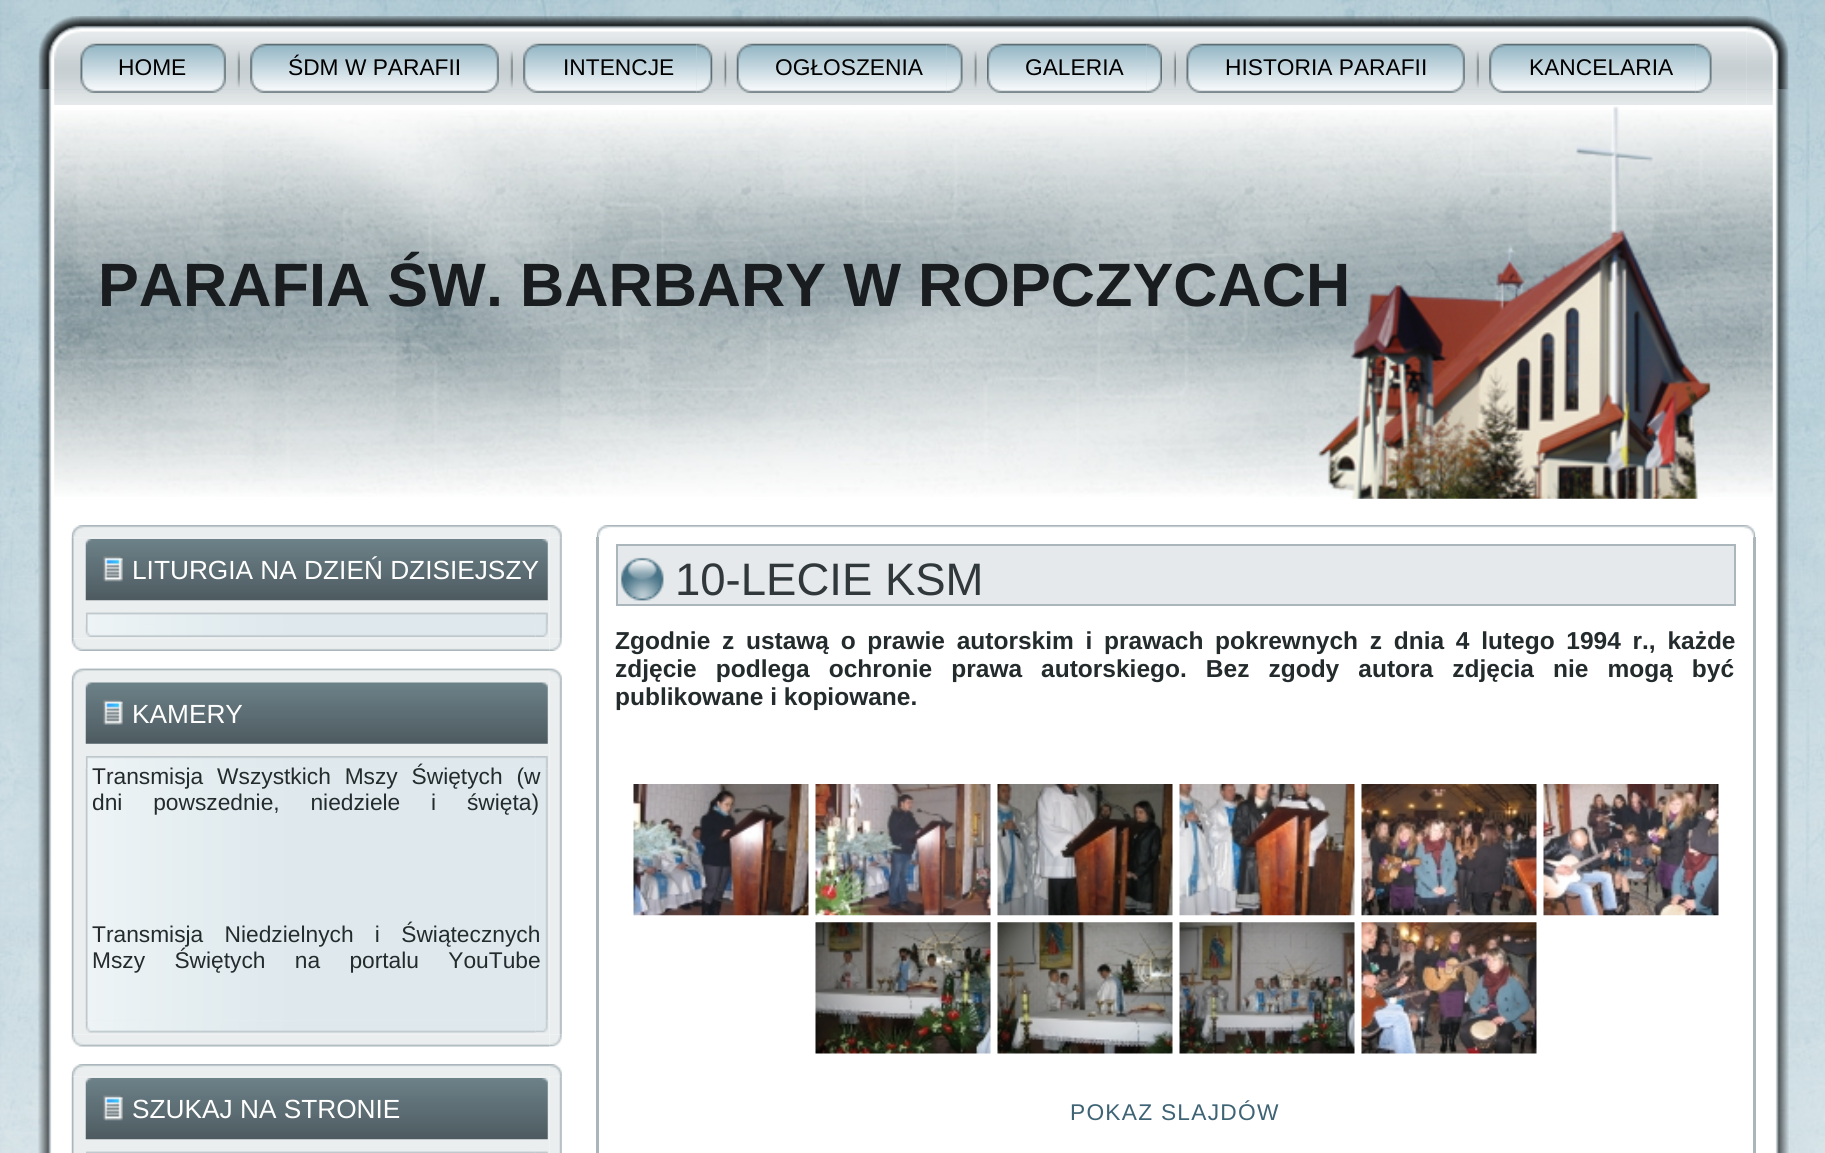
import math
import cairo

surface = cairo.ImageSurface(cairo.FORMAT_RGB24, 1825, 1153)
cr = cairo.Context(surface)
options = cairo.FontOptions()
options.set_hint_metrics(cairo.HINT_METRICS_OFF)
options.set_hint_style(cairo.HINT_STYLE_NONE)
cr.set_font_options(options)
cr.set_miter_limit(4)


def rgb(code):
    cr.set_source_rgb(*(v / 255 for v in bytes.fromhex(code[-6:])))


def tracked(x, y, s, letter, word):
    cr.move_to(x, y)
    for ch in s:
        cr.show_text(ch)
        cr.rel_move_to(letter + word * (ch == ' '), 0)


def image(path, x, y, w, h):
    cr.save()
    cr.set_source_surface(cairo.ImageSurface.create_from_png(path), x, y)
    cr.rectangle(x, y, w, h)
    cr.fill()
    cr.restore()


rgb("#ffffff")
cr.paint()
image("img/1.png", 0, 0, 1825, 1153)
image("img/2.png", 38, 16, 1677, 74)
image("img/3.png", 38, 16, 1677, 74)
image("img/26.png", 1715, 89, 74, 1064)
image("img/4.png", 1715, 16, 74, 74)
image("img/5.png", 1715, 16, 74, 74)
image("img/25.png", 38, 89, 1677, 1064)
image("img/6.png", 54, 31, 1693, 74)
image("img/7.png", 1746, 31, 27, 74)
image("img/8.png", 80, 43, 130, 50)
image("img/9.png", 210, 43, 16, 50)
image("img/10.png", 236, 50, 4, 38)
image("img/11.png", 250, 43, 233, 50)
image("img/12.png", 483, 43, 16, 50)
image("img/10.png", 509, 50, 4, 38)
image("img/13.png", 523, 43, 174, 50)
image("img/14.png", 696, 43, 17, 50)
image("img/15.png", 723, 50, 4, 38)
image("img/16.png", 736, 43, 211, 50)
image("img/17.png", 946, 43, 17, 50)
image("img/18.png", 973, 51, 4, 37)
image("img/19.png", 987, 43, 160, 50)
image("img/20.png", 1146, 43, 16, 50)
image("img/21.png", 1173, 50, 3, 38)
image("img/22.png", 1186, 43, 263, 50)
image("img/9.png", 1449, 43, 16, 50)
image("img/10.png", 1475, 50, 4, 38)
image("img/23.png", 1489, 43, 207, 50)
image("img/24.png", 1695, 43, 17, 50)
image("img/28.png", 54, 110, 1719, 387)
image("img/27.png", 1317, 106, 394, 393)
image("img/29.png", 71, 525, 479, 126)
image("img/30.png", 71, 525, 479, 13)
image("img/33.png", 71, 537, 479, 102)
image("img/34.png", 549, 537, 13, 102)
image("img/31.png", 549, 525, 13, 126)
image("img/32.png", 549, 525, 13, 13)
image("img/35.png", 85, 539, 426, 62)
image("img/36.png", 511, 539, 37, 62)
image("img/37.png", 85, 612, 451, 25)
image("img/38.png", 86, 612, 450, 13)
image("img/39.png", 535, 612, 13, 25)
image("img/40.png", 536, 612, 12, 13)
image("img/41.png", 71, 668, 479, 379)
image("img/42.png", 71, 668, 479, 13)
image("img/45.png", 71, 680, 479, 355)
image("img/46.png", 549, 680, 13, 355)
image("img/43.png", 549, 668, 13, 379)
image("img/44.png", 549, 668, 13, 13)
image("img/47.png", 85, 682, 426, 62)
image("img/48.png", 511, 682, 37, 62)
image("img/49.png", 85, 756, 451, 277)
image("img/50.png", 86, 756, 450, 13)
image("img/53.png", 85, 768, 451, 252)
image("img/54.png", 536, 768, 12, 253)
image("img/51.png", 535, 756, 13, 277)
image("img/52.png", 546, 756, 2, 12)
image("img/55.png", 71, 1064, 479, 13)
image("img/30.png", 71, 1064, 479, 13)
image("img/57.png", 71, 1076, 479, 77)
image("img/58.png", 549, 1076, 13, 77)
image("img/56.png", 549, 1064, 13, 13)
image("img/32.png", 549, 1064, 13, 13)
image("img/35.png", 85, 1078, 426, 62)
image("img/36.png", 511, 1078, 37, 62)
image("img/59.png", 86, 1151, 450, 2)
image("img/60.png", 86, 1151, 450, 2)
image("img/61.png", 535, 1151, 13, 2)
image("img/62.png", 536, 1151, 12, 2)
image("img/63.png", 596, 525, 1147, 13)
image("img/64.png", 596, 525, 13, 13)
rgb("#aab6bb")
cr.rectangle(1753, 537, 3, 616)
cr.fill()
image("img/65.png", 1743, 525, 13, 13)
image("img/66.png", 1743, 525, 13, 13)
cr.rectangle(596, 537, 3, 616)
cr.fill()
rgb("#e6e9eb")
cr.rectangle(617, 545, 1118, 60)
cr.fill_preserve()
rgb("#aab6bb")
cr.stroke()
image("img/67.png", 620, 557, 44, 44)
image("img/68.png", 633, 784, 176, 132)
image("img/69.png", 815, 784, 176, 132)
image("img/70.png", 997, 784, 176, 132)
image("img/71.png", 1179, 784, 176, 132)
image("img/72.png", 1361, 784, 176, 132)
image("img/73.png", 1543, 784, 176, 132)
image("img/74.png", 815, 922, 176, 132)
image("img/75.png", 997, 922, 176, 132)
image("img/76.png", 1179, 922, 176, 132)
image("img/77.png", 1361, 922, 176, 132)
cr.select_font_face("Liberation Sans")
cr.set_font_size(22.75)
rgb("#000000")
for x, y, s in [
    (118, 75, "HOME"),
    (288, 75, "ŚDM W PARAFII"),
    (563, 75, "INTENCJE"),
    (775, 75, "OGŁOSZENIA"),
    (1025, 75, "GALERIA"),
    (1225, 75, "HISTORIA PARAFII"),
    (1529, 75, "KANCELARIA"),
]:
    cr.move_to(x, y)
    cr.show_text(s)
cr.select_font_face("Liberation Sans", cairo.FONT_SLANT_NORMAL, cairo.FONT_WEIGHT_BOLD)
cr.set_font_size(61.25)
rgb("#191d1f")
cr.move_to(98, 306)
cr.show_text("PARAFIA ŚW. BARBARY W ROPCZYCACH")
cr.select_font_face("Liberation Sans")
cr.set_font_size(26.25)
rgb("#ffffff")
cr.move_to(132, 579)
cr.show_text("LITURGIA NA DZIEŃ DZISIEJSZY")
cr.move_to(132, 723)
cr.show_text("KAMERY")
cr.set_font_size(22.75)
rgb("#242b2d")
tracked(92, 784, "Transmisja Wszystkich Mszy Świętych (w", 0, 7.5)
tracked(92, 810, "dni powszednie, niedziele i święta)", 0, 24.5)
tracked(92, 942, "Transmisja Niedzielnych i Świątecznych", 0, 15)
tracked(92, 968, "Mszy Świętych na portalu YouTube", 0, 23)
cr.set_font_size(26.25)
rgb("#ffffff")
cr.move_to(132, 1118)
cr.show_text("SZUKAJ NA STRONIE")
cr.set_font_size(45.5)
rgb("#30383b")
cr.move_to(675, 595)
cr.show_text("10-LECIE KSM")
cr.select_font_face("Liberation Sans", cairo.FONT_SLANT_NORMAL, cairo.FONT_WEIGHT_BOLD)
cr.set_font_size(24.5)
rgb("#242b2d")
tracked(615, 649, "Zgodnie z ustawą o prawie autorskim i prawach pokrewnych z dnia 4 lutego 1994 r., każde", 0, 4.9)
tracked(615, 677, "zdjęcie podlega ochronie prawa autorskiego. Bez zgody autora zdjęcia nie mogą być", 0, 12.25)
cr.move_to(615, 705)
cr.show_text("publikowane i kopiowane.")
cr.select_font_face("Liberation Sans")
cr.set_font_size(22.75)
rgb("#3e6374")
tracked(1070, 1120, "POKAZ SLAJDÓW", 1.25, 0)
surface.write_to_png("page.png")
